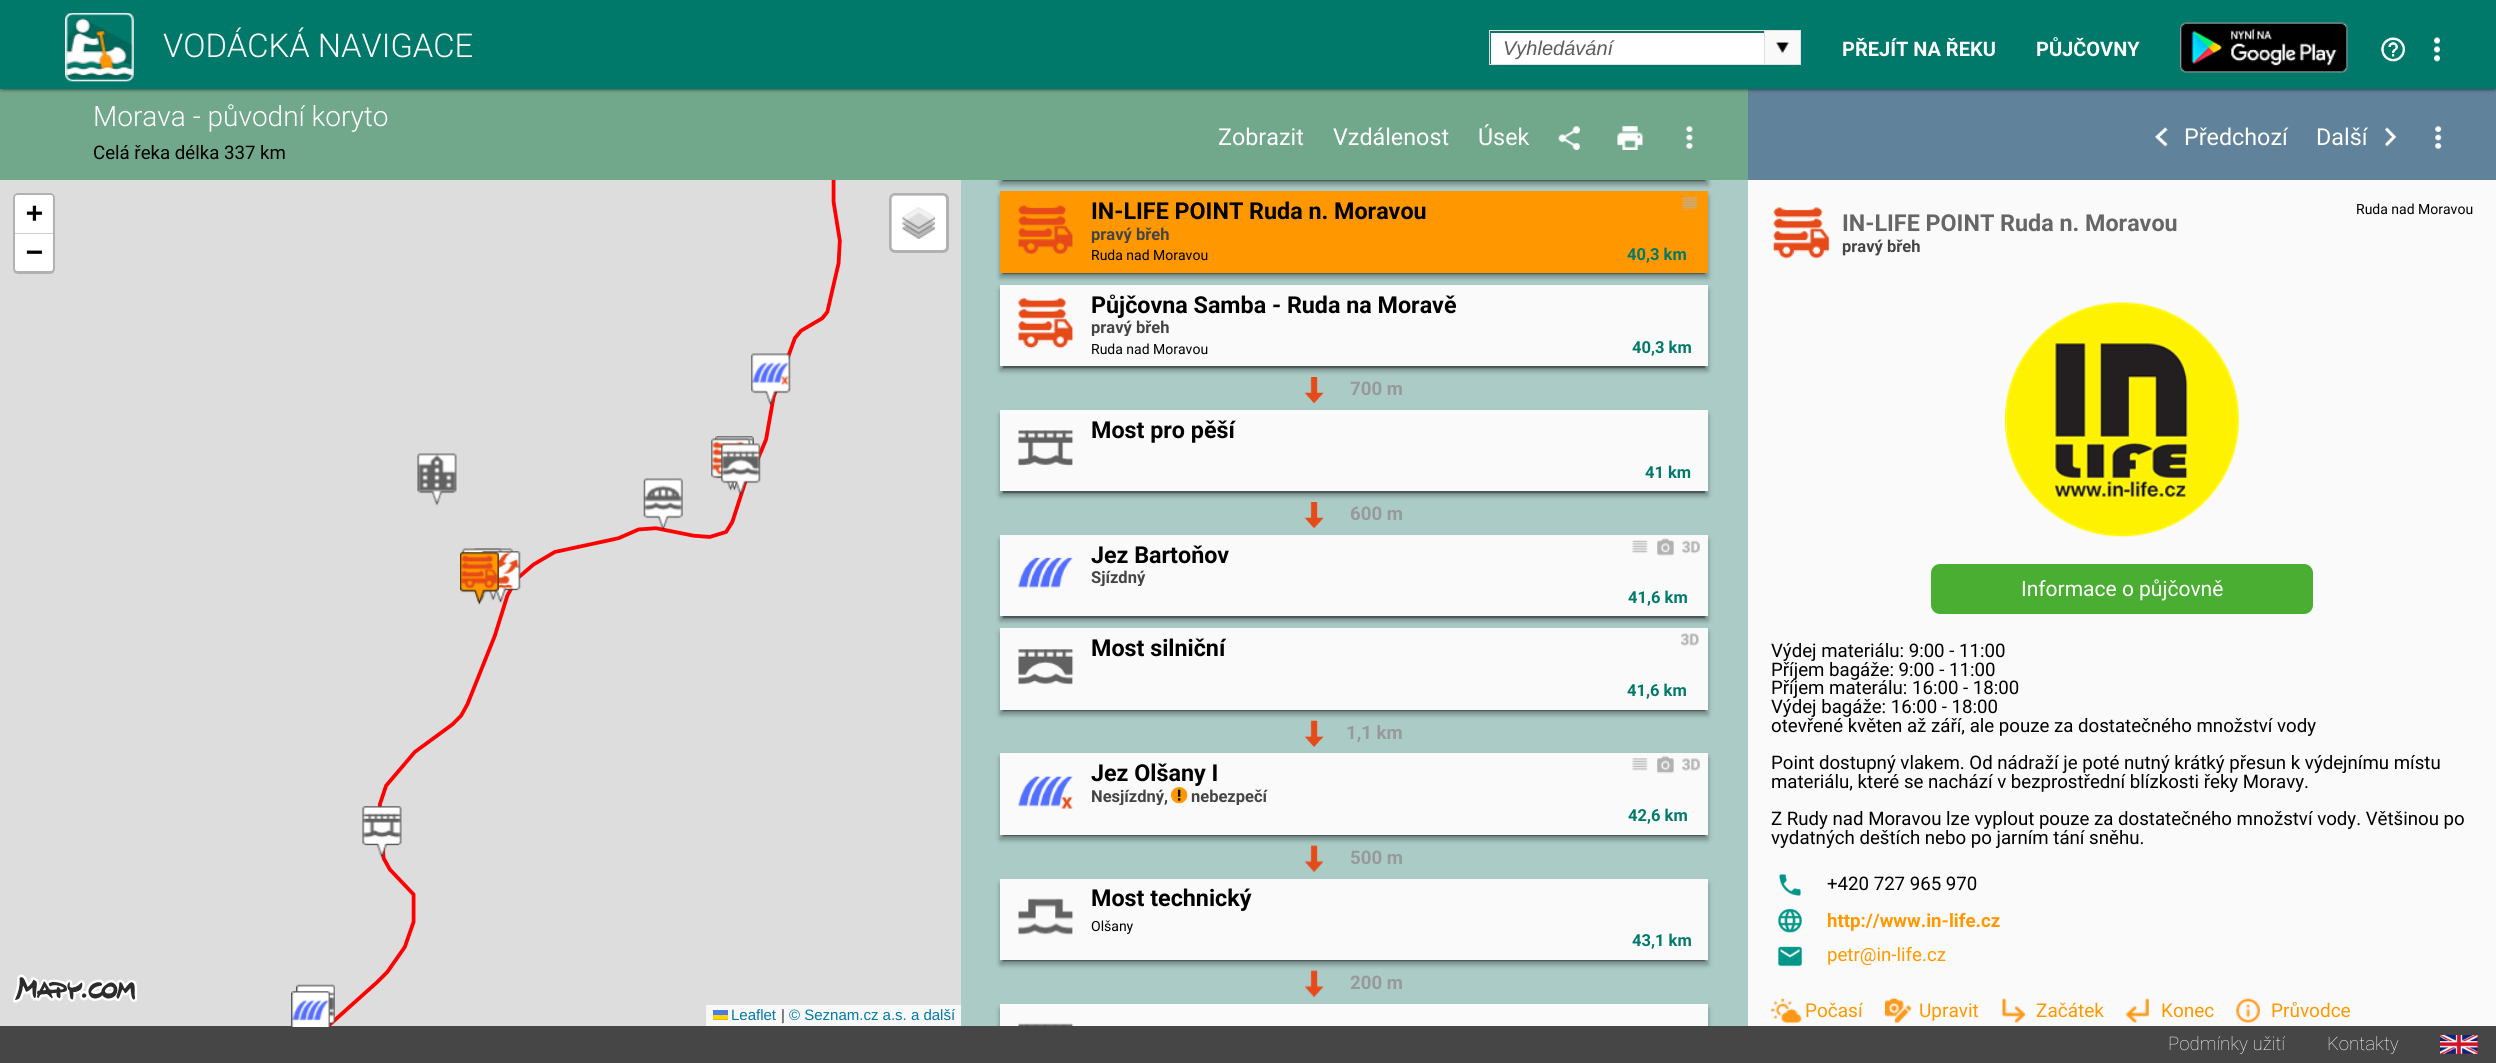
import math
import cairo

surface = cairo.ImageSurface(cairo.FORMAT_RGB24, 2496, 1063)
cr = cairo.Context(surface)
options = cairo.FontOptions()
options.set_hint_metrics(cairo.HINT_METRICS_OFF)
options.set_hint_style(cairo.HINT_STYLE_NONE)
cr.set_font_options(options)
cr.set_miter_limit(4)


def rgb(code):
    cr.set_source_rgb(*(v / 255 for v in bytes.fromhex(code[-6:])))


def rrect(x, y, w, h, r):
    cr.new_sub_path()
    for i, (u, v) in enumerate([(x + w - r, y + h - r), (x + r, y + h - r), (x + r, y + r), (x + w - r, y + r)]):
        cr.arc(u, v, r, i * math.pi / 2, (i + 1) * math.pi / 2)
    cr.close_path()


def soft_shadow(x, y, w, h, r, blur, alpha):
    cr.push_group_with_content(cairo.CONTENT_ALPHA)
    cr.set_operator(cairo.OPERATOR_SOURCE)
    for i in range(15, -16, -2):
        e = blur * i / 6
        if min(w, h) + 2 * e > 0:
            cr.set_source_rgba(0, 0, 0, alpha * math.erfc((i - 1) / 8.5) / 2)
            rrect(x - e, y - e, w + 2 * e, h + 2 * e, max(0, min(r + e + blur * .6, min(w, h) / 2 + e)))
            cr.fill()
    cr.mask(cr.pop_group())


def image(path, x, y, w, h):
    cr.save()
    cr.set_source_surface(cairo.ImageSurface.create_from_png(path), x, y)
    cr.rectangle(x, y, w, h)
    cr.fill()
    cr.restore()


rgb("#abcbc7")
cr.paint()
rgb("#71a88c")
cr.rectangle(0, 89, 1748, 91)
cr.fill()
rgb("#60829a")
cr.rectangle(1748, 89, 748, 91)
cr.fill()
rgb("#000000")
soft_shadow(0, 1, 2496, 89, 0, 3, 0.12)
soft_shadow(3, 6, 2491, 84, 0, 0.5, 0.2)
soft_shadow(0, 3, 2496, 88, 0, 1, 0.14)
rgb("#00796b")
cr.rectangle(0, 0, 2496, 89)
cr.fill()
image("img/1.png", 65, 13, 69, 69)
for x, y, w, h, color in [
    (1491, 33, 273, 31, "#ffffff"),
    (1764, 30, 37, 1, "#e0dfdf"),
    (1800, 30, 1, 35, "#e0dfdf"),
    (1764, 64, 37, 1, "#e0dfdf"),
    (1764, 30, 1, 35, "#e0dfdf"),
    (1489, 30, 276, 1, "#e0dfdf"),
    (1489, 64, 276, 1, "#e0dfdf"),
    (1489, 30, 1, 35, "#e0dfdf"),
    (1765, 31, 35, 33, "#f9f9f9"),
]:
    rgb(color)
    cr.rectangle(x, y, w, h)
    cr.fill()
image("img/2.png", 1776, 42, 13, 12)
image("img/3.png", 2180, 22, 168, 51)
image("img/4.png", 2381, 37, 24, 25)
image("img/5.png", 2434, 37, 6, 25)
image("img/6.png", 1558, 126, 22, 24)
image("img/7.png", 1617, 126, 26, 24)
image("img/8.png", 1686, 126, 7, 23)
rgb("#dddddd")
cr.rectangle(0, 180, 961, 846)
cr.fill()
image("img/9.png", 329, 180, 513, 846)
image("img/10.png", 751, 353, 40, 53)
image("img/11.png", 715, 436, 39, 52)
image("img/13.png", 715, 438, 39, 53)
image("img/12.png", 711, 438, 40, 53)
image("img/14.png", 417, 453, 40, 53)
image("img/15.png", 643, 478, 40, 53)
image("img/16.png", 721, 443, 40, 53)
image("img/18.png", 473, 548, 40, 53)
image("img/17.png", 462, 548, 40, 53)
image("img/20.png", 481, 551, 40, 52)
image("img/19.png", 460, 552, 39, 53)
image("img/21.png", 460, 552, 39, 53)
image("img/22.png", 362, 806, 40, 52)
image("img/23.png", 296, 984, 39, 41)
rgb("#000000")
soft_shadow(1000, 1008, 708, 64, 0, 3, 0.12)
soft_shadow(1000, 1009, 708, 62, 0, 2.5, 0.24)
rgb("#464646")
cr.rectangle(0, 1026, 2496, 37)
cr.fill()
image("img/24.png", 291, 991, 39, 36)
rrect(14.5, 194.5, 39, 78, 3.5)
rgb("#b1b1b1")
cr.set_line_width(3)
cr.stroke()
rgb("#ffffff")
cr.new_path()
cr.move_to(17.5, 195)
cr.line_to(50.5, 195)
cr.curve_to(52, 195, 53, 196, 53, 197.5)
cr.line_to(53, 234)
cr.line_to(15, 234)
cr.line_to(15, 197.5)
cr.curve_to(15, 196, 16, 195, 17.5, 195)
cr.close_path()
cr.fill()
rgb("#cccccc")
cr.rectangle(15, 233, 38, 1)
cr.fill()
rgb("#ffffff")
cr.new_path()
cr.move_to(15, 234)
cr.line_to(53, 234)
cr.line_to(53, 268.5)
cr.curve_to(53, 270, 52, 271, 50.5, 271)
cr.line_to(17.5, 271)
cr.curve_to(16, 271, 15, 270, 15, 268.5)
cr.close_path()
cr.fill()
rrect(891, 195, 55, 55, 4)
cr.fill()
rrect(890.5, 194.5, 57, 57, 4.5)
cr.set_source_rgba(0, 0, 0, 0.2)
cr.stroke()
image("img/25.png", 902, 207, 33, 32)
image("img/26.png", 13, 974, 125, 29)
for x, y, w, h, color in [
    (706, 1005, 255, 21, "#f8f8f8"),
    (713, 1010, 15, 5, "#4c7be1"),
    (713, 1015, 15, 4, "#ffd500"),
    (713, 1019, 15, 1, "#e0bc00"),
]:
    rgb(color)
    cr.rectangle(x, y, w, h)
    cr.fill()
cr.save()
cr.rectangle(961, 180, 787, 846)
cr.clip()
rgb("#000000")
soft_shadow(1000, 101, 708, 83, 0, 3, 0.12)
cr.restore()
cr.save()
cr.rectangle(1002, 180, 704, 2)
cr.clip()
rgb("#000000")
soft_shadow(1003, 104, 702, 77, 0, 0.5, 0.4)
cr.restore()
cr.save()
cr.rectangle(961, 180, 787, 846)
cr.clip()
rgb("#000000")
soft_shadow(1000, 103, 708, 82, 0, 2.5, 0.24)
cr.restore()
rgb("#000000")
soft_shadow(1000, 195, 708, 81, 0, 3, 0.12)
soft_shadow(1003, 198, 702, 76, 0, 0.5, 0.4)
soft_shadow(1000, 196, 708, 82, 0, 2.5, 0.24)
rgb("#ff9800")
cr.rectangle(1000, 191, 708, 82)
cr.fill()
image("img/27.png", 1018, 205, 55, 50)
image("img/28.png", 1682, 196, 16, 14)
rgb("#000000")
soft_shadow(1000, 289, 708, 81, 0, 3, 0.12)
soft_shadow(1003, 291, 702, 77, 0, 0.5, 0.4)
soft_shadow(1000, 290, 708, 81, 0, 2.5, 0.24)
rgb("#fafafa")
cr.rectangle(1000, 285, 708, 81)
cr.fill()
image("img/29.png", 1018, 298, 56, 51)
image("img/30.png", 1304, 377, 20, 27)
rgb("#000000")
soft_shadow(1000, 414, 708, 81, 0, 3, 0.12)
soft_shadow(1003, 416, 702, 77, 0, 0.5, 0.4)
soft_shadow(1000, 415, 708, 81, 0, 2.5, 0.24)
rgb("#fafafa")
cr.rectangle(1000, 410, 708, 81)
cr.fill()
image("img/31.png", 1018, 430, 56, 36)
image("img/30.png", 1304, 502, 20, 27)
rgb("#000000")
soft_shadow(1000, 539, 708, 81, 0, 3, 0.12)
soft_shadow(1003, 541, 702, 77, 0, 0.5, 0.4)
soft_shadow(1000, 540, 708, 81, 0, 2.5, 0.24)
rgb("#fafafa")
cr.rectangle(1000, 535, 708, 81)
cr.fill()
image("img/32.png", 1018, 557, 55, 31)
image("img/33.png", 1632, 540, 16, 13)
image("img/34.png", 1657, 538, 17, 18)
image("img/35.png", 1682, 540, 18, 14)
rgb("#000000")
soft_shadow(1000, 631, 708, 83, 0, 3, 0.12)
soft_shadow(1003, 634, 702, 77, 0, 0.5, 0.4)
soft_shadow(1000, 633, 708, 82, 0, 2.5, 0.24)
rgb("#fafafa")
cr.rectangle(1000, 628, 708, 82)
cr.fill()
image("img/36.png", 1018, 649, 56, 36)
image("img/37.png", 1680, 633, 19, 13)
rgb("#000000")
soft_shadow(1000, 756, 708, 83, 0, 3, 0.12)
image("img/38.png", 1304, 720, 20, 27)
soft_shadow(1003, 759, 702, 77, 0, 0.5, 0.4)
soft_shadow(1000, 758, 708, 82, 0, 2.5, 0.24)
rgb("#fafafa")
cr.rectangle(1000, 753, 708, 82)
cr.fill()
image("img/39.png", 1018, 776, 55, 33)
image("img/40.png", 1632, 758, 16, 13)
image("img/41.png", 1657, 755, 17, 19)
image("img/42.png", 1682, 758, 18, 13)
image("img/43.png", 1171, 787, 17, 17)
image("img/44.png", 1304, 845, 20, 28)
rgb("#000000")
soft_shadow(1000, 883, 708, 81, 0, 3, 0.12)
soft_shadow(1003, 885, 702, 76, 0, 0.5, 0.4)
soft_shadow(1000, 884, 708, 81, 0, 2.5, 0.24)
rgb("#fafafa")
cr.rectangle(1000, 879, 708, 81)
cr.fill()
image("img/45.png", 1018, 898, 56, 37)
image("img/44.png", 1304, 970, 20, 28)
cr.rectangle(1000, 1004, 708, 22)
cr.fill()
image("img/46.png", 1018, 1023, 56, 3)
cr.rectangle(1748, 180, 748, 846)
cr.fill()
image("img/47.png", 2155, 127, 13, 20)
image("img/48.png", 2385, 127, 12, 20)
image("img/49.png", 2435, 126, 7, 23)
image("img/50.png", 1773, 207, 57, 52)
image("img/51.png", 2005, 302, 234, 235)
rgb("#49ae32")
rrect(1931, 564, 382, 50, 9)
cr.fill()
image("img/52.png", 1779, 874, 22, 22)
image("img/53.png", 1777, 908, 26, 25)
image("img/54.png", 1777, 946, 26, 21)
image("img/55.png", 1771, 998, 31, 25)
image("img/56.png", 1885, 998, 27, 25)
image("img/57.png", 2002, 998, 23, 25)
image("img/58.png", 2126, 998, 23, 25)
image("img/59.png", 2236, 998, 24, 25)
rgb("#ff0000")
cr.rectangle(2440, 1035, 38, 19)
cr.fill()
image("img/60.png", 2440, 1035, 38, 19)
cr.select_font_face("Roboto Light")
cr.set_font_size(32.75)
rgb("#ffffff")
cr.move_to(163, 57)
cr.show_text("VODÁCKÁ NAVIGACE")
cr.select_font_face("Liberation Sans", cairo.FONT_SLANT_ITALIC)
cr.set_font_size(20)
rgb("#5c5c5c")
cr.move_to(1503, 55)
cr.show_text("Vyhledávání")
cr.select_font_face("Roboto", cairo.FONT_SLANT_NORMAL, cairo.FONT_WEIGHT_BOLD)
rgb("#ffffff")
cr.move_to(1842, 56)
cr.show_text("PŘEJÍT NA ŘEKU")
cr.move_to(2036, 56)
cr.show_text("PŮJČOVNY")
cr.select_font_face("Roboto Light")
cr.set_font_size(28)
cr.move_to(93, 126)
cr.show_text("Morava - původní koryto")
cr.select_font_face("Roboto")
cr.set_font_size(18.65)
rgb("#000000")
cr.move_to(93, 159)
cr.show_text("Celá řeka délka 337 km")
cr.set_font_size(23.3)
rgb("#ffffff")
for x, y, s in [
    (1218, 145, "Zobrazit"),
    (1333, 145, "Vzdálenost"),
    (1478, 145, "Úsek"),
]:
    cr.move_to(x, y)
    cr.show_text(s)
cr.select_font_face("DejaVu Sans Mono", cairo.FONT_SLANT_NORMAL, cairo.FONT_WEIGHT_BOLD)
cr.set_font_size(28)
rgb("#000000")
cr.move_to(26, 222)
cr.show_text("+")
cr.move_to(26, 261)
cr.show_text("−")
cr.select_font_face("Liberation Sans")
cr.set_font_size(15)
rgb("#0078a8")
cr.move_to(731, 1020)
cr.show_text("Leaflet")
rgb("#333333")
cr.move_to(781, 1020)
cr.show_text("|")
rgb("#0078a8")
cr.move_to(789, 1020)
cr.show_text("© Seznam.cz a.s. a další")
cr.select_font_face("Roboto", cairo.FONT_SLANT_NORMAL, cairo.FONT_WEIGHT_BOLD)
cr.set_font_size(23.3)
rgb("#000000")
cr.move_to(1091, 219)
cr.show_text("IN-LIFE POINT Ruda n. Moravou")
cr.save()
cr.rectangle(1091, 226, 537, 17)
cr.clip()
cr.set_font_size(16.5)
rgb("#444444")
cr.move_to(1091, 240)
cr.show_text("pravý břeh")
cr.restore()
cr.select_font_face("Roboto")
cr.set_font_size(14)
cr.move_to(1091, 260)
cr.show_text("Ruda nad Moravou")
cr.select_font_face("Roboto", cairo.FONT_SLANT_NORMAL, cairo.FONT_WEIGHT_BOLD)
cr.set_font_size(16.5)
rgb("#00796b")
cr.move_to(1627, 260)
cr.show_text("40,3 km")
cr.set_font_size(23.3)
rgb("#000000")
cr.move_to(1091, 313)
cr.show_text("Půjčovna Samba - Ruda na Moravě")
cr.save()
cr.rectangle(1091, 320, 542, 16)
cr.clip()
cr.set_font_size(16.5)
rgb("#444444")
cr.move_to(1091, 333)
cr.show_text("pravý břeh")
cr.restore()
cr.select_font_face("Roboto")
cr.set_font_size(14)
cr.move_to(1091, 354)
cr.show_text("Ruda nad Moravou")
cr.select_font_face("Roboto", cairo.FONT_SLANT_NORMAL, cairo.FONT_WEIGHT_BOLD)
cr.set_font_size(16.5)
rgb("#00796b")
cr.move_to(1632, 353)
cr.show_text("40,3 km")
cr.set_font_size(18.65)
rgb("#999999")
cr.move_to(1350, 395)
cr.show_text("700 m")
cr.set_font_size(23.3)
rgb("#000000")
cr.move_to(1091, 438)
cr.show_text("Most pro pěší")
cr.set_font_size(16.5)
rgb("#00796b")
cr.move_to(1645, 478)
cr.show_text("41 km")
cr.set_font_size(18.65)
rgb("#999999")
cr.move_to(1350, 520)
cr.show_text("600 m")
cr.set_font_size(23.3)
rgb("#000000")
cr.move_to(1091, 563)
cr.show_text("Jez Bartoňov")
cr.save()
cr.rectangle(1091, 570, 538, 16)
cr.clip()
cr.set_font_size(16.5)
rgb("#444444")
cr.move_to(1091, 583)
cr.show_text("Sjízdný")
cr.restore()
cr.set_font_size(16.5)
rgb("#00796b")
cr.move_to(1628, 603)
cr.show_text("41,6 km")
cr.set_font_size(23.3)
rgb("#000000")
cr.move_to(1091, 656)
cr.show_text("Most silniční")
cr.set_font_size(16.5)
rgb("#00796b")
cr.move_to(1627, 696)
cr.show_text("41,6 km")
cr.set_font_size(18.65)
rgb("#999999")
cr.move_to(1346, 739)
cr.show_text("1,1 km")
cr.set_font_size(23.3)
rgb("#000000")
cr.move_to(1091, 781)
cr.show_text("Jez Olšany I")
cr.save()
cr.rectangle(1091, 788, 538, 17)
cr.clip()
cr.set_font_size(16.5)
rgb("#444444")
cr.move_to(1091, 802)
cr.show_text("Nesjízdný,")
cr.move_to(1191, 802)
cr.show_text("nebezpečí")
cr.restore()
cr.set_font_size(16.5)
rgb("#00796b")
cr.move_to(1628, 821)
cr.show_text("42,6 km")
cr.set_font_size(18.65)
rgb("#999999")
cr.move_to(1350, 864)
cr.show_text("500 m")
cr.set_font_size(23.3)
rgb("#000000")
cr.move_to(1091, 906)
cr.show_text("Most technický")
cr.select_font_face("Roboto")
cr.set_font_size(14)
cr.move_to(1091, 931)
cr.show_text("Olšany")
cr.select_font_face("Roboto", cairo.FONT_SLANT_NORMAL, cairo.FONT_WEIGHT_BOLD)
cr.set_font_size(16.5)
rgb("#00796b")
cr.move_to(1632, 946)
cr.show_text("43,1 km")
cr.set_font_size(18.65)
rgb("#999999")
cr.move_to(1350, 989)
cr.show_text("200 m")
cr.select_font_face("Roboto")
cr.set_font_size(23.3)
rgb("#ffffff")
cr.move_to(2184, 145)
cr.show_text("Předchozí")
cr.move_to(2316, 145)
cr.show_text("Další")
cr.select_font_face("Roboto", cairo.FONT_SLANT_NORMAL, cairo.FONT_WEIGHT_BOLD)
rgb("#666666")
cr.move_to(1842, 231)
cr.show_text("IN-LIFE POINT Ruda n. Moravou")
cr.select_font_face("Roboto")
cr.set_font_size(14)
rgb("#000000")
cr.move_to(2356, 214)
cr.show_text("Ruda nad Moravou")
cr.select_font_face("Roboto", cairo.FONT_SLANT_NORMAL, cairo.FONT_WEIGHT_BOLD)
cr.set_font_size(16.5)
rgb("#444444")
cr.move_to(1842, 252)
cr.show_text("pravý břeh")
cr.select_font_face("Roboto")
cr.set_font_size(21)
rgb("#ffffff")
cr.move_to(2021, 596)
cr.show_text("Informace o půjčovně")
cr.set_font_size(18.65)
rgb("#000000")
for x, y, s in [
    (1771, 657, "Výdej materiálu: 9:00 - 11:00"),
    (1771, 676, "Příjem bagáže: 9:00 - 11:00"),
    (1771, 694, "Příjem materálu: 16:00 - 18:00"),
    (1771, 713, "Výdej bagáže: 16:00 - 18:00"),
    (1771, 732, "otevřené květen až září, ale pouze za dostatečného množství vody"),
    (1771, 769, "Point dostupný vlakem. Od nádraží je poté nutný krátký přesun k výdejnímu místu"),
    (1771, 788, "materiálu, které se nachází v bezprostřední blízkosti řeky Moravy."),
    (1771, 825, "Z Rudy nad Moravou lze vyplout pouze za dostatečného množství vody. Většinou po"),
    (1771, 844, "vydatných deštích nebo po jarním tání sněhu."),
    (1827, 890, "+420 727 965 970"),
]:
    cr.move_to(x, y)
    cr.show_text(s)
cr.select_font_face("Roboto", cairo.FONT_SLANT_NORMAL, cairo.FONT_WEIGHT_BOLD)
rgb("#ff9800")
cr.move_to(1827, 927)
cr.show_text("http://www.in-life.cz")
cr.select_font_face("Roboto")
cr.move_to(1827, 961)
cr.show_text("petr@in-life.cz")
cr.set_font_size(19)
for x, y, s in [
    (1805, 1017, "Počasí"),
    (1919, 1017, "Upravit"),
    (2036, 1017, "Začátek"),
    (2161, 1017, "Konec"),
    (2271, 1017, "Průvodce"),
]:
    cr.move_to(x, y)
    cr.show_text(s)
cr.select_font_face("Roboto Thin")
cr.set_font_size(18.65)
rgb("#ffffff")
cr.move_to(2168, 1050)
cr.show_text("Podmínky užití")
cr.move_to(2327, 1050)
cr.show_text("Kontakty")
surface.write_to_png("page.png")
